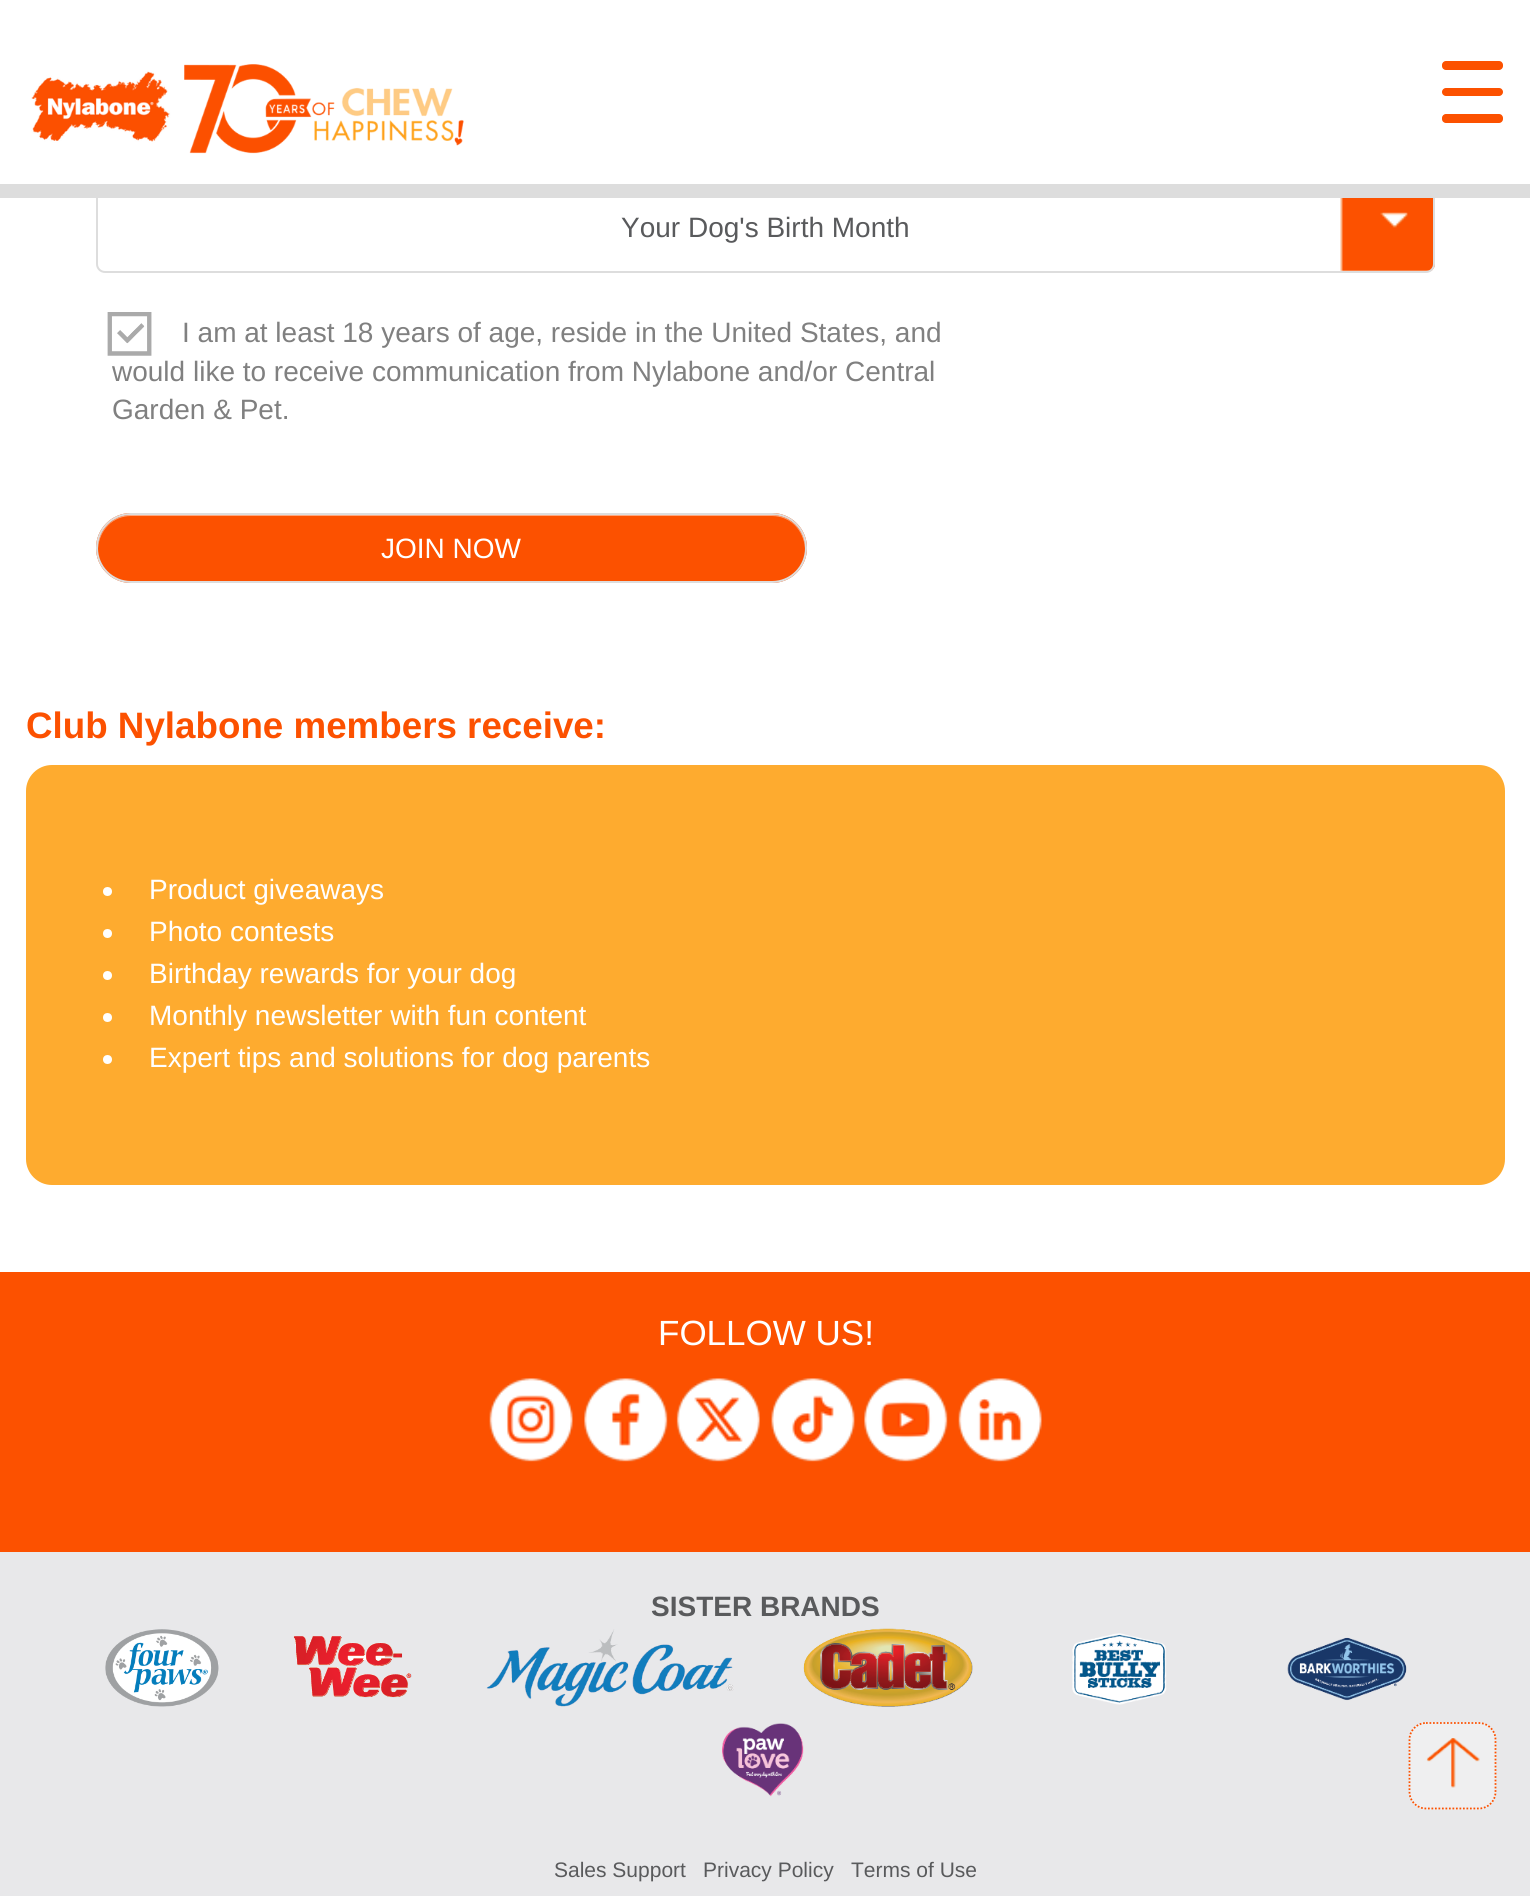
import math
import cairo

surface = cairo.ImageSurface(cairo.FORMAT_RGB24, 1530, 1896)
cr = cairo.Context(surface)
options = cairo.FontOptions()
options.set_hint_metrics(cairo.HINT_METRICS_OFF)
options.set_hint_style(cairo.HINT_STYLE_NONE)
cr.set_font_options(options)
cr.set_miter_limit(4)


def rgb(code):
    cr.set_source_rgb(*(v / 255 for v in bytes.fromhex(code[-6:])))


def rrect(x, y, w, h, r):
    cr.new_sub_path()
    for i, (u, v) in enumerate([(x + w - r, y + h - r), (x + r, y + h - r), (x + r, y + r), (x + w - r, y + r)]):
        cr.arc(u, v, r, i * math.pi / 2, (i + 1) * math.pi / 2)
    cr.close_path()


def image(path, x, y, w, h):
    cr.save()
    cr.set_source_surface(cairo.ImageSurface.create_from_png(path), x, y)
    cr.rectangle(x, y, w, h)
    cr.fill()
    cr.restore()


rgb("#ffffff")
cr.paint()
image("img/2.png", 1340, 198, 95, 75)
rrect(97, 169, 1337, 103, 8)
rgb("#dddddd")
cr.stroke()
rgb("#ffffff")
cr.rectangle(96, 168, 1339, 16)
cr.fill()
rgb("#dddddd")
cr.rectangle(0, 184, 1530, 14)
cr.fill()
image("img/1.png", 31, 64, 433, 90)
rgb("#fc5100")
rrect(1442, 61, 61, 9, 4)
cr.fill()
rrect(1442, 88, 61, 8, 4)
cr.fill()
rrect(1442, 114, 61, 9, 4)
cr.fill()
image("img/3.png", 107, 312, 45, 44)
rrect(96, 513, 711, 70, 35)
cr.fill()
rgb("#fea880")
cr.new_path()
cr.move_to(131, 516)
cr.line_to(772, 516)
cr.curve_to(790, 516, 804, 530, 805, 549)
cr.curve_to(806, 531, 790, 515, 772, 515)
cr.line_to(131, 515)
cr.curve_to(113, 515, 97, 531, 98, 549)
cr.curve_to(99, 530, 113, 516, 131, 516)
cr.close_path()
cr.fill()
rrect(97, 514, 709, 68, 34)
rgb("#dddddd")
cr.stroke()
rgb("#feab2f")
rrect(26, 765, 1479, 420, 26)
cr.fill()
rgb("#ffffff")
cr.arc(107.5, 891.5, 4.5, 0, 2 * math.pi)
cr.fill()
cr.arc(107.5, 933.5, 4.5, 0, 2 * math.pi)
cr.fill()
cr.arc(107.5, 975.5, 4.5, 0, 2 * math.pi)
cr.fill()
cr.arc(107.5, 1017.5, 4.5, 0, 2 * math.pi)
cr.fill()
cr.arc(107.5, 1059.5, 4.5, 0, 2 * math.pi)
cr.fill()
rgb("#fc5100")
cr.rectangle(0, 1272, 1530, 280)
cr.fill()
image("img/4.png", 489, 1378, 84, 84)
image("img/5.png", 584, 1378, 84, 84)
image("img/6.png", 676, 1378, 84, 84)
image("img/7.png", 771, 1378, 84, 84)
image("img/8.png", 864, 1378, 84, 84)
image("img/9.png", 958, 1378, 84, 84)
rgb("#e8e8ea")
cr.rectangle(0, 1552, 1530, 344)
cr.fill()
image("img/10.png", 105, 1629, 114, 78)
image("img/11.png", 293, 1636, 119, 62)
image("img/12.png", 486, 1629, 248, 78)
image("img/13.png", 803, 1628, 170, 79)
image("img/14.png", 1072, 1633, 95, 72)
image("img/15.png", 1287, 1637, 120, 64)
image("img/16.png", 722, 1723, 82, 74)
rgb("#efeff0")
rrect(1409, 1722, 87, 88, 18)
cr.fill()
cr.new_path()
cr.move_to(1426, 1723)
cr.line_to(1479, 1723)
cr.curve_to(1488, 1723, 1495.5, 1730.5, 1495.5, 1739.5)
cr.line_to(1495.5, 1792)
cr.curve_to(1495.5, 1801, 1488, 1808.5, 1479, 1808.5)
cr.line_to(1426, 1808.5)
cr.curve_to(1417, 1808.5, 1409.5, 1801, 1409.5, 1792)
cr.line_to(1409.5, 1739.5)
cr.curve_to(1409.5, 1730.5, 1417, 1723, 1426, 1723)
cr.close_path()
rgb("#fc5100")
cr.set_line_width(1.8)
cr.set_dash([1.75, 1.75])
cr.stroke()
image("img/17.png", 1426, 1738, 54, 50)
cr.select_font_face("Liberation Sans")
cr.set_font_size(28)
rgb("#595a5c")
cr.move_to(621, 237)
cr.show_text("Your Dog's Birth Month")
rgb("#808080")
for x, y, s in [
    (182, 342, "I am at least 18 years of age, reside in the United States, and"),
    (112, 381, "would like to receive communication from Nylabone and/or Central"),
    (112, 419, "Garden & Pet."),
]:
    cr.move_to(x, y)
    cr.show_text(s)
rgb("#ffffff")
cr.move_to(381, 558)
cr.show_text("JOIN NOW")
cr.select_font_face("Liberation Sans", cairo.FONT_SLANT_NORMAL, cairo.FONT_WEIGHT_BOLD)
cr.set_font_size(36.75)
rgb("#fc5100")
cr.move_to(26, 738)
cr.show_text("Club Nylabone members receive:")
cr.select_font_face("Liberation Sans")
cr.set_font_size(28)
rgb("#ffffff")
for x, y, s in [
    (149, 899, "Product giveaways"),
    (149, 941, "Photo contests"),
    (149, 983, "Birthday rewards for your dog"),
    (149, 1025, "Monthly newsletter with fun content"),
    (149, 1067, "Expert tips and solutions for dog parents"),
]:
    cr.move_to(x, y)
    cr.show_text(s)
cr.set_font_size(35)
cr.move_to(658, 1345)
cr.show_text("FOLLOW US!")
cr.select_font_face("Liberation Sans", cairo.FONT_SLANT_NORMAL, cairo.FONT_WEIGHT_BOLD)
cr.set_font_size(28)
rgb("#595a5c")
cr.move_to(651, 1616)
cr.show_text("SISTER BRANDS")
cr.select_font_face("Liberation Sans")
cr.set_font_size(21)
for x, y, s in [
    (554, 1877, "Sales Support"),
    (703, 1877, "Privacy Policy"),
    (851, 1877, "Terms of Use"),
]:
    cr.move_to(x, y)
    cr.show_text(s)
surface.write_to_png("page.png")
